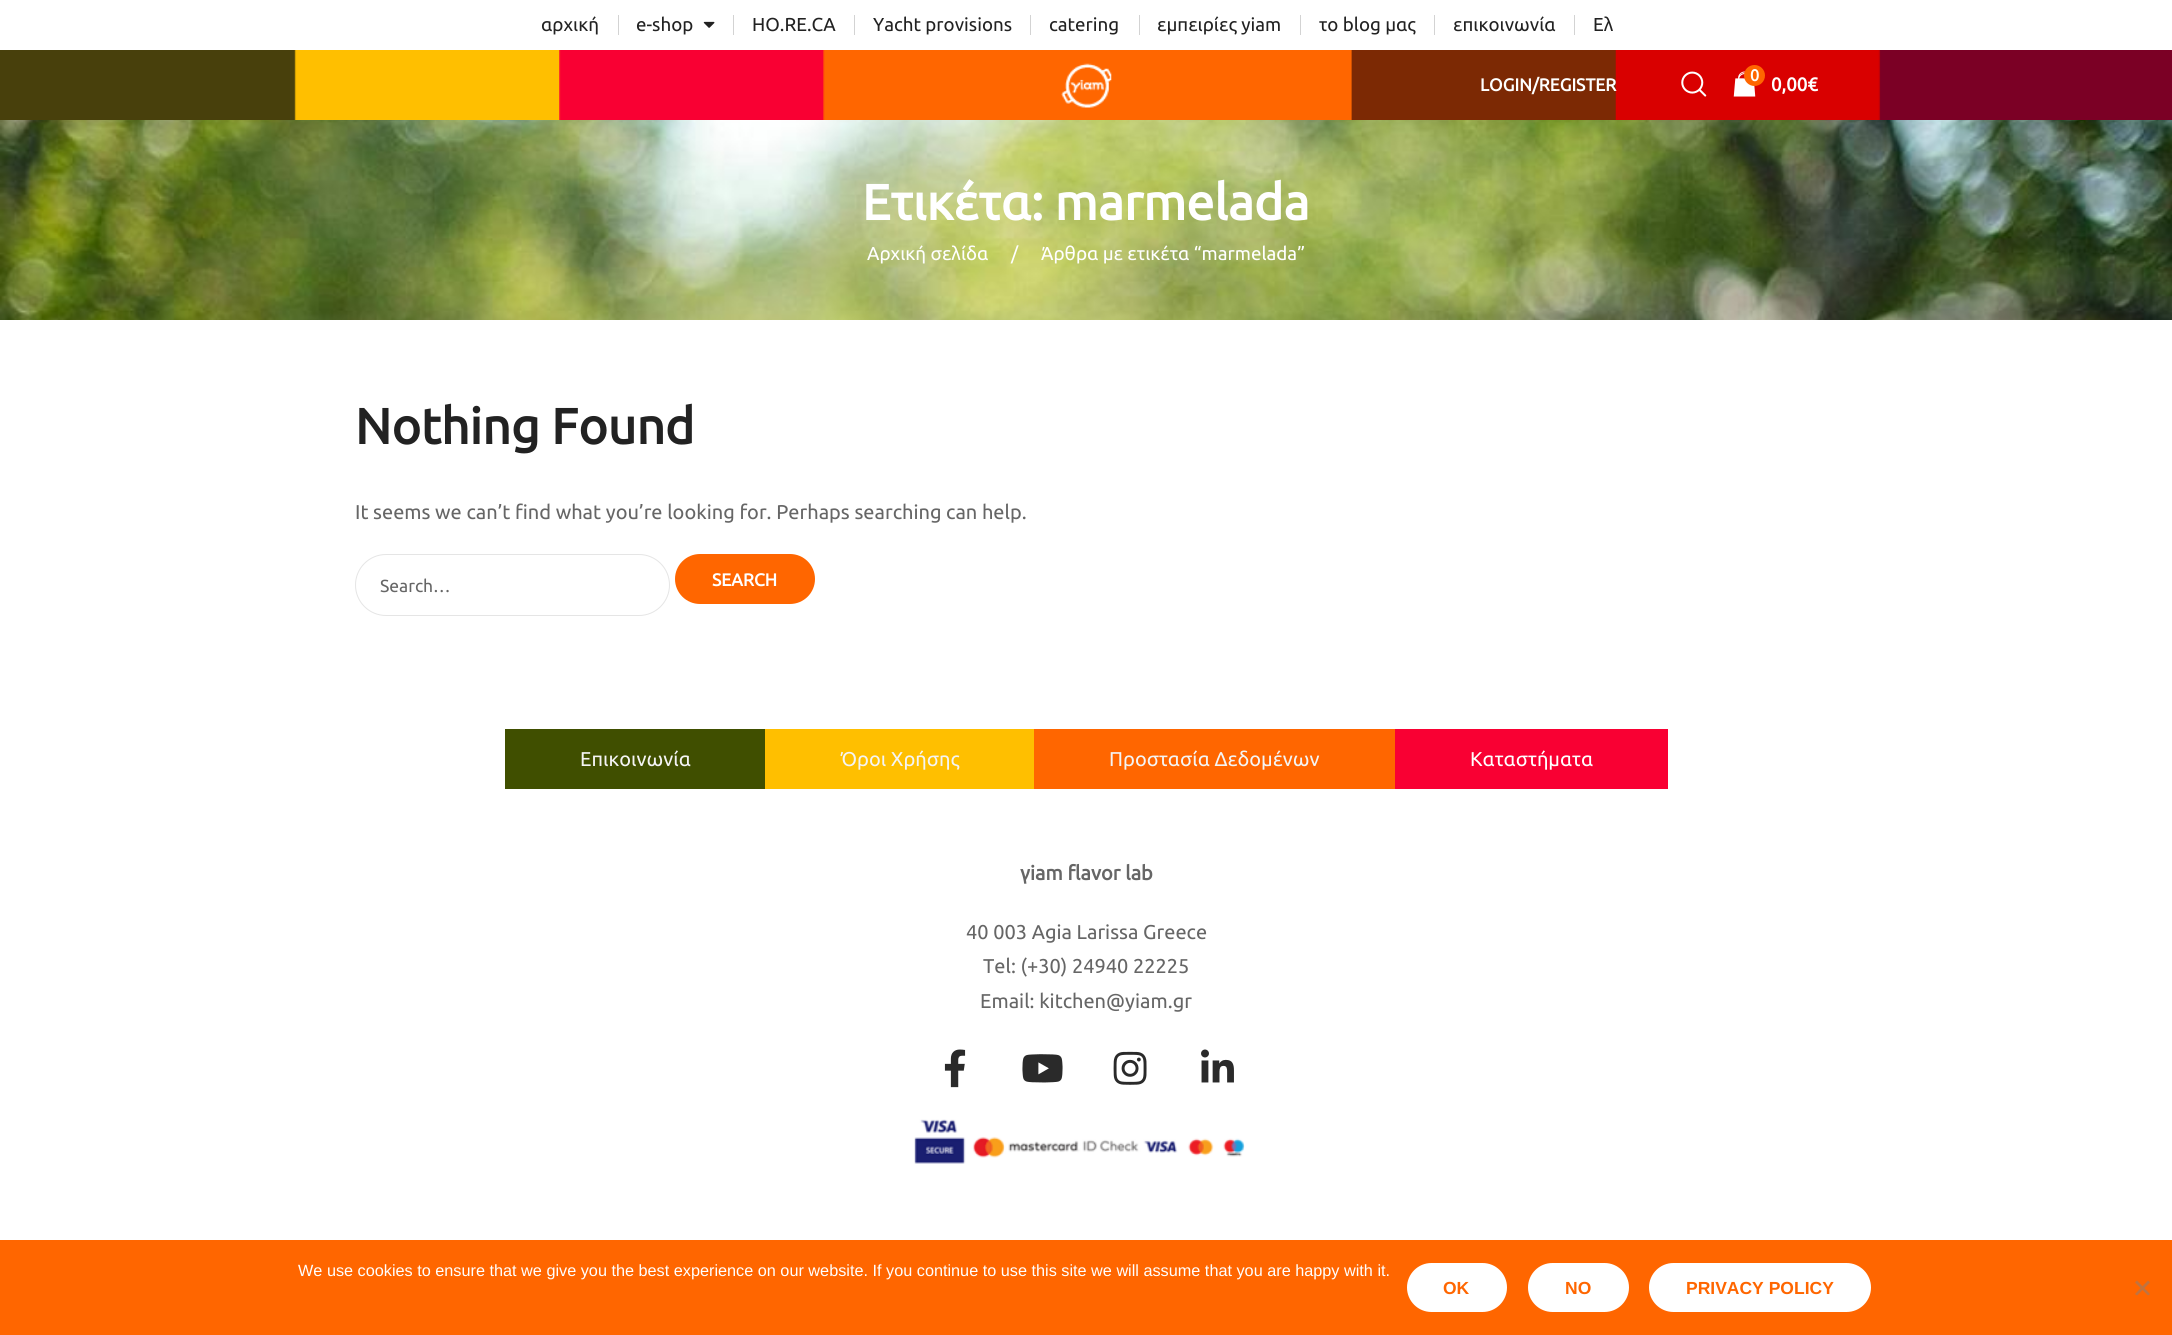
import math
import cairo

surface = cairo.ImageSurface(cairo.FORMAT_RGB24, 2172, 1335)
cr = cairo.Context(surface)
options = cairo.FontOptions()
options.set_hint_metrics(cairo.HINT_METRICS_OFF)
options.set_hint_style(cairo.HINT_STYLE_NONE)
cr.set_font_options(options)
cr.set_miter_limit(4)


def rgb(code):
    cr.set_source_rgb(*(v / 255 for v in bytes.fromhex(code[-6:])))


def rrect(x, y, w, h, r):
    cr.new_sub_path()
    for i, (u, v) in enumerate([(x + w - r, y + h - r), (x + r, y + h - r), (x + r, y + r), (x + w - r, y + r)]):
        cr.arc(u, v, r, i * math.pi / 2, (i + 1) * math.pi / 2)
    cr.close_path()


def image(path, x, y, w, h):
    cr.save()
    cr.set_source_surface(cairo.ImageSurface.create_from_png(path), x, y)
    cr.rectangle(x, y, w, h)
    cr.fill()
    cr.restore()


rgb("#ffffff")
cr.paint()
rgb("#d3d3d3")
cr.rectangle(618, 15, 1, 20)
cr.fill()
image("img/1.png", 703, 21, 12, 7)
for x, y, w, h, color in [
    (733, 15, 1, 20, "#d3d3d3"),
    (854, 15, 1, 20, "#d3d3d3"),
    (1030, 15, 1, 20, "#d3d3d3"),
    (1139, 15, 1, 20, "#d3d3d3"),
    (1300, 15, 1, 20, "#d3d3d3"),
    (1434, 15, 1, 20, "#d3d3d3"),
    (1574, 15, 1, 20, "#d3d3d3"),
]:
    rgb(color)
    cr.rectangle(x, y, w, h)
    cr.fill()
image("img/2.png", 0, 50, 2172, 70)
image("img/3.png", 1061, 63, 51, 45)
image("img/4.png", 1681, 71, 26, 26)
image("img/5.png", 1733, 71, 23, 26)
rgb("#ff6600")
cr.arc(1754.5, 75.5, 10.5, 0, 2 * math.pi)
cr.fill()
image("img/6.png", 0, 120, 2172, 200)
rrect(355.5, 554.5, 314, 61, 30.5)
rgb("#e5e5e5")
cr.set_line_width(1)
cr.stroke()
rgb("#ff6600")
rrect(675, 554, 140, 50, 25)
cr.fill()
for x, y, w, h, color in [
    (505, 729, 260, 60, "#404f00"),
    (765, 729, 269, 60, "#ffbf00"),
    (1034, 729, 361, 60, "#ff6600"),
    (1395, 729, 273, 60, "#f90033"),
]:
    rgb(color)
    cr.rectangle(x, y, w, h)
    cr.fill()
image("img/7.png", 944, 1049, 22, 39)
image("img/8.png", 1022, 1054, 41, 29)
image("img/9.png", 1113, 1051, 34, 34)
image("img/10.png", 1201, 1049, 33, 34)
image("img/11.png", 914, 1119, 331, 45)
rgb("#ff6600")
cr.rectangle(0, 1240, 2172, 95)
cr.fill()
rgb("#ffffff")
rrect(1405, 1261, 104, 53, 26.5)
cr.fill_preserve()
rgb("#ff6600")
cr.set_line_width(4)
cr.stroke()
rgb("#ffffff")
rrect(1526, 1261, 105, 53, 26.5)
cr.fill_preserve()
rgb("#ff6600")
cr.stroke()
rgb("#ffffff")
rrect(1647, 1261, 226, 53, 26.5)
cr.fill_preserve()
rgb("#ff6600")
cr.stroke()
rgb("#c07340")
cr.new_path()
cr.move_to(2148, 1280.5)
cr.line_to(2150, 1282.5)
cr.line_to(2137, 1295.5)
cr.line_to(2135, 1294)
cr.close_path()
cr.fill()
cr.new_path()
cr.move_to(2135, 1282.5)
cr.line_to(2137, 1280.5)
cr.line_to(2150, 1294)
cr.line_to(2148, 1295.5)
cr.close_path()
cr.fill()
cr.select_font_face("Ubuntu")
cr.set_font_size(18.75)
rgb("#222222")
for x, y, s in [
    (541, 31, "αρχική"),
    (636, 31, "e-shop"),
    (752, 31, "HO.RE.CA"),
    (873, 31, "Yacht provisions"),
    (1049, 31, "catering"),
    (1157, 31, "εμπειρίες yiam"),
    (1319, 31, "το blog μας"),
    (1453, 31, "επικοινωνία"),
    (1593, 31, "Ελ"),
]:
    cr.move_to(x, y)
    cr.show_text(s)
cr.select_font_face("Ubuntu", cairo.FONT_SLANT_NORMAL, cairo.FONT_WEIGHT_BOLD)
cr.set_font_size(17.5)
rgb("#ffffff")
cr.move_to(1480, 91)
cr.show_text("LOGIN/REGISTER")
cr.set_font_size(16.25)
cr.move_to(1750, 81)
cr.show_text("0")
cr.set_font_size(18.75)
cr.move_to(1771, 91)
cr.show_text("0,00€")
cr.set_font_size(50)
cr.move_to(862, 220)
cr.show_text("Ετικέτα: marmelada")
cr.select_font_face("Ubuntu")
cr.set_font_size(18.75)
for x, y, s in [
    (867, 260, "Αρχική σελίδα"),
    (1011, 260, "/"),
    (1041, 260, "Άρθρα με ετικέτα “marmelada”"),
]:
    cr.move_to(x, y)
    cr.show_text(s)
cr.select_font_face("Ubuntu", cairo.FONT_SLANT_NORMAL, cairo.FONT_WEIGHT_BOLD)
cr.set_font_size(50)
rgb("#222222")
cr.move_to(355, 444)
cr.show_text("Nothing Found")
cr.select_font_face("Ubuntu")
cr.set_font_size(20)
rgb("#666666")
cr.move_to(355, 519)
cr.show_text("It seems we can’t find what you’re looking for. Perhaps searching can help.")
cr.set_font_size(17.5)
cr.move_to(380, 592)
cr.show_text("Search…")
cr.select_font_face("Ubuntu", cairo.FONT_SLANT_NORMAL, cairo.FONT_WEIGHT_BOLD)
rgb("#ffffff")
cr.move_to(712, 586)
cr.show_text("SEARCH")
cr.select_font_face("Ubuntu")
cr.set_font_size(20)
rgb("#f4f4f4")
for x, y, s in [
    (580, 766, "Επικοινωνία"),
    (841, 766, "Όροι Χρήσης"),
    (1109, 766, "Προστασία Δεδομένων"),
]:
    cr.move_to(x, y)
    cr.show_text(s)
rgb("#ffffff")
cr.move_to(1470, 766)
cr.show_text("Καταστήματα")
cr.select_font_face("Ubuntu", cairo.FONT_SLANT_NORMAL, cairo.FONT_WEIGHT_BOLD)
rgb("#666666")
cr.move_to(1020, 880)
cr.show_text("γiam flavor lab")
cr.select_font_face("Ubuntu")
for x, y, s in [
    (966, 939, "40 003 Agia Larissa Greece"),
    (983, 973, "Tel: (+30) 24940 22225"),
    (980, 1008, "Email: kitchen@yiam.gr"),
]:
    cr.move_to(x, y)
    cr.show_text(s)
cr.select_font_face("Liberation Sans")
cr.set_font_size(16.25)
rgb("#ffffff")
cr.move_to(298, 1276)
cr.show_text("We use cookies to ensure that we give you the best experience on our website. If you continue to use this site we will assume that you are happy with it.")
cr.select_font_face("Liberation Sans", cairo.FONT_SLANT_NORMAL, cairo.FONT_WEIGHT_BOLD)
cr.set_font_size(17.5)
rgb("#ff6600")
for x, y, s in [
    (1443, 1294, "OK"),
    (1565, 1294, "NO"),
    (1686, 1294, "PRIVACY POLICY"),
]:
    cr.move_to(x, y)
    cr.show_text(s)
surface.write_to_png("page.png")
